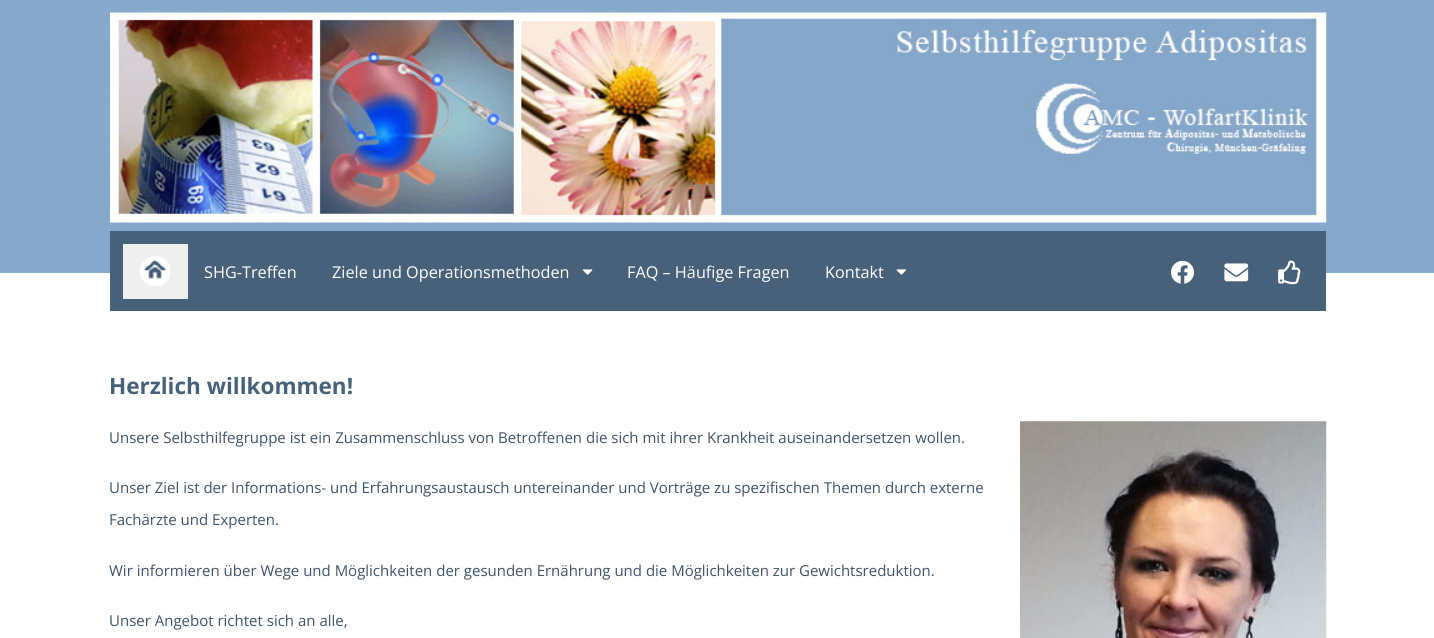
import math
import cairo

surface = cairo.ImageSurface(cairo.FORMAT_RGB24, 1434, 638)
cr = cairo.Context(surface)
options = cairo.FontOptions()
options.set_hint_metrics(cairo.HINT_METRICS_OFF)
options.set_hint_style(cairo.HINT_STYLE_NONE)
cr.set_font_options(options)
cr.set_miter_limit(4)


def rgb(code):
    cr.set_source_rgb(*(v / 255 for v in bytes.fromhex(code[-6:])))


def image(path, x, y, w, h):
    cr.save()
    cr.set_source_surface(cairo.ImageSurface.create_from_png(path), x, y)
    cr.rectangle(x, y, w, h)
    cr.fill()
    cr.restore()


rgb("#ffffff")
cr.paint()
rgb("#86a8cb")
cr.rectangle(0, 0, 1434, 273)
cr.fill()
image("img/1.png", 110, 12, 1217, 211)
rgb("#47617b")
cr.rectangle(110, 231, 1216, 80)
cr.fill()
rgb("#efefef")
cr.rectangle(123, 244, 65, 55)
cr.fill()
image("img/2.png", 140, 256, 30, 30)
image("img/3.png", 582, 269, 11, 6)
image("img/4.png", 896, 269, 10, 6)
image("img/5.png", 1171, 260, 23, 24)
image("img/6.png", 1224, 263, 25, 19)
image("img/7.png", 1278, 260, 23, 25)
image("img/8.png", 1020, 421, 307, 217)
cr.select_font_face("Open Sans")
cr.set_font_size(16.25)
rgb("#ffffff")
for x, y, s in [
    (204, 278, "SHG-Treffen"),
    (332, 278, "Ziele und Operationsmethoden"),
    (627, 278, "FAQ – Häufige Fragen"),
    (825, 278, "Kontakt"),
]:
    cr.move_to(x, y)
    cr.show_text(s)
cr.select_font_face("Open Sans", cairo.FONT_SLANT_NORMAL, cairo.FONT_WEIGHT_BOLD)
cr.set_font_size(22.5)
rgb("#47617b")
cr.move_to(109, 394)
cr.show_text("Herzlich willkommen!")
cr.select_font_face("Open Sans")
cr.set_font_size(15)
rgb("#3d546b")
for x, y, s in [
    (109, 443, "Unsere Selbsthilfegruppe ist ein Zusammenschluss von Betroffenen die sich mit ihrer Krankheit auseinandersetzen wollen."),
    (109, 493, "Unser Ziel ist der Informations- und Erfahrungsaustausch untereinander und Vorträge zu spezifischen Themen durch externe"),
    (109, 525, "Fachärzte und Experten."),
    (109, 576, "Wir informieren über Wege und Möglichkeiten der gesunden Ernährung und die Möglichkeiten zur Gewichtsreduktion."),
    (109, 626, "Unser Angebot richtet sich an alle,"),
]:
    cr.move_to(x, y)
    cr.show_text(s)
surface.write_to_png("page.png")
